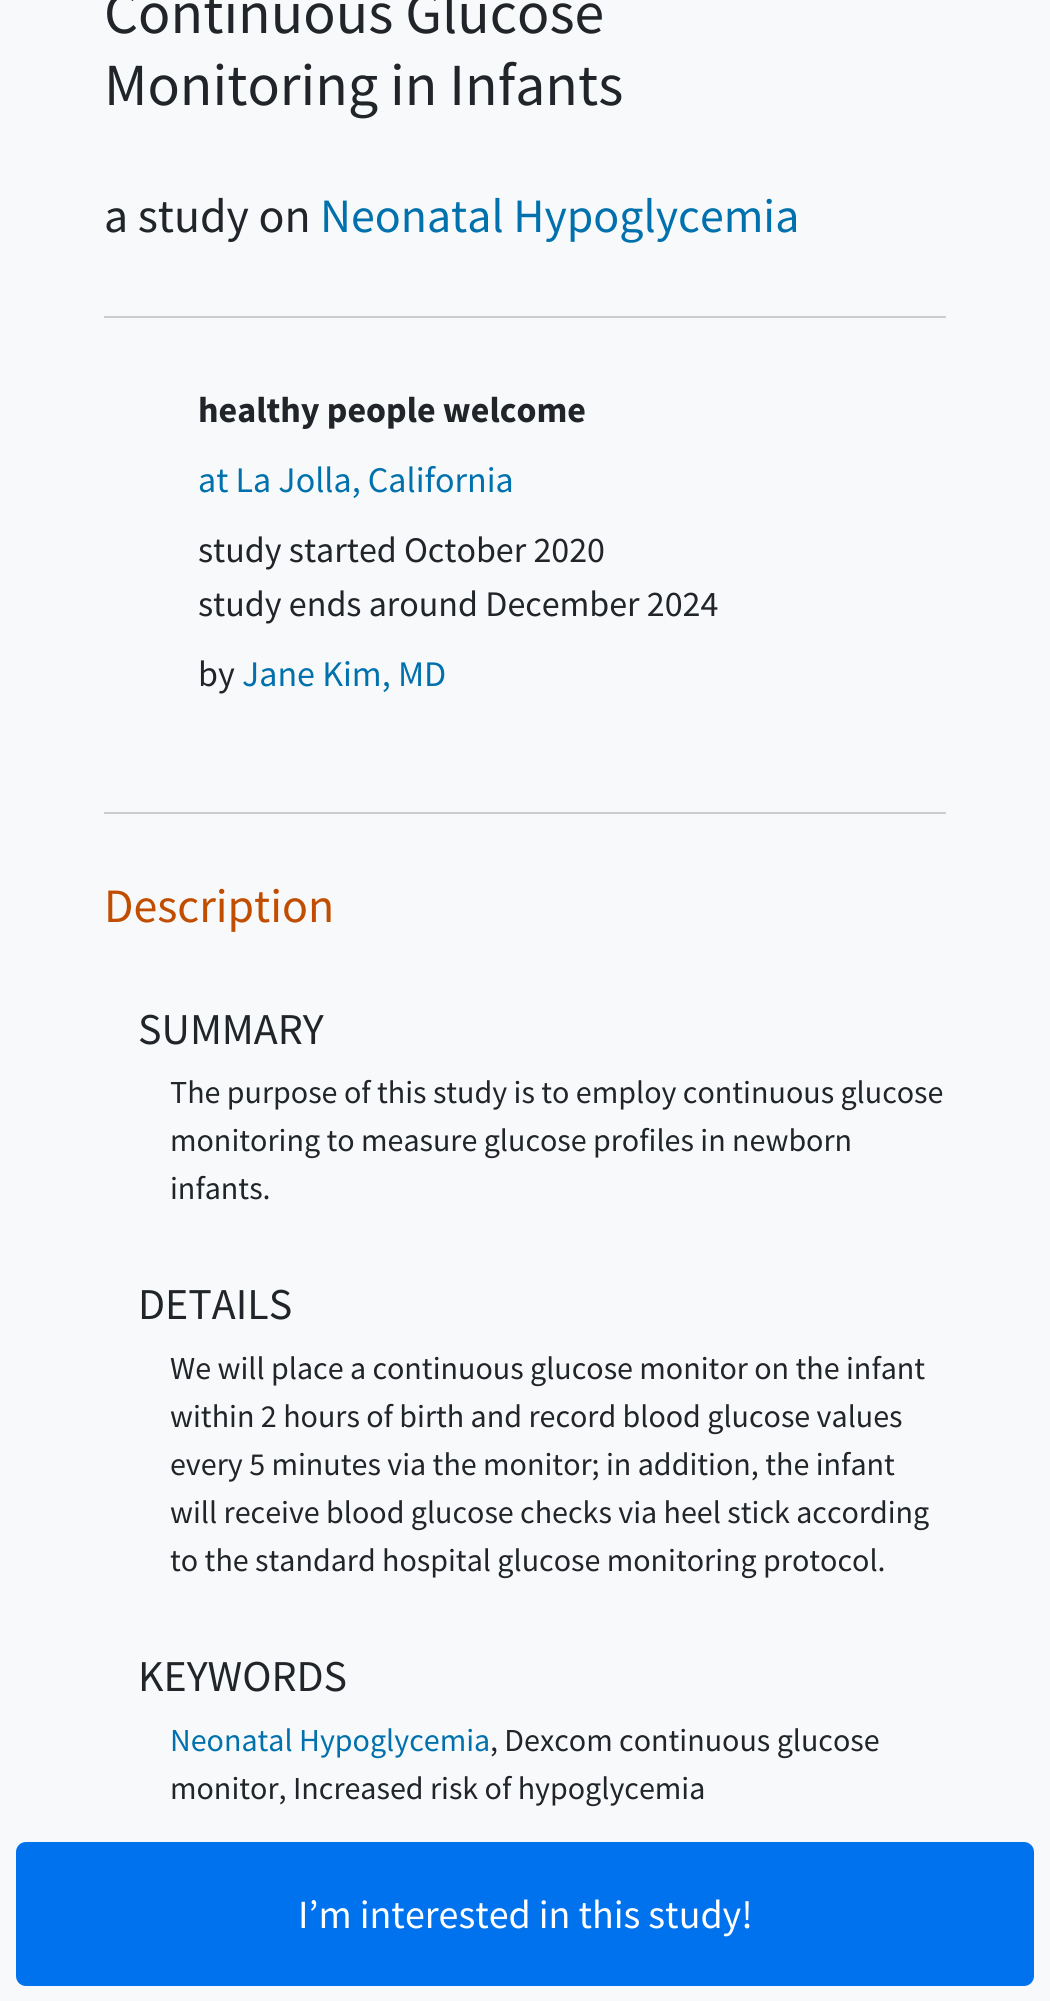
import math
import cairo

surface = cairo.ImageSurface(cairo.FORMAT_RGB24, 1050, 2001)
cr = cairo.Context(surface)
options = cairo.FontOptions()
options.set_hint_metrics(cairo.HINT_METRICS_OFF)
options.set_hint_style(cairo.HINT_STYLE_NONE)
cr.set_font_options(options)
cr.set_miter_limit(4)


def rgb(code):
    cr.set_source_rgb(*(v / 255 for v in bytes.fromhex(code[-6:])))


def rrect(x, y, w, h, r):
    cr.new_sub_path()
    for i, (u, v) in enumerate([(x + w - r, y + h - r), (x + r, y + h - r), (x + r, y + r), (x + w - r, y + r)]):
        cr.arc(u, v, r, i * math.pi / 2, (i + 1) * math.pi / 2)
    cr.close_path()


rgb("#f8f9fa")
cr.paint()
rgb("#cccccc")
cr.rectangle(104, 316, 842, 2)
cr.fill()
cr.rectangle(104, 812, 842, 2)
cr.fill()
rgb("#0072ed")
rrect(17, 1843, 1016, 142, 9)
cr.fill_preserve()
cr.stroke()
cr.select_font_face("Source Sans Pro")
cr.set_font_size(59.75)
rgb("#212529")
cr.move_to(104, 33)
cr.show_text("Continuous Glucose")
cr.move_to(104, 105)
cr.show_text("Monitoring in Infants")
cr.set_font_size(47.9)
cr.move_to(104, 232)
cr.show_text("a study on")
rgb("#0071ad")
cr.move_to(320, 232)
cr.show_text("Neonatal Hypoglycemia")
cr.select_font_face("Source Sans Pro", cairo.FONT_SLANT_NORMAL, cairo.FONT_WEIGHT_BOLD)
cr.set_font_size(36)
rgb("#212529")
cr.move_to(198, 422)
cr.show_text("healthy people welcome")
cr.select_font_face("Source Sans Pro")
rgb("#0071ad")
cr.move_to(198, 492)
cr.show_text("at La Jolla, California")
rgb("#212529")
for x, y, s in [
    (198, 562, "study started October 2020"),
    (198, 616, "study ends around December 2024"),
    (198, 686, "by"),
]:
    cr.move_to(x, y)
    cr.show_text(s)
rgb("#0071ad")
cr.move_to(242, 686)
cr.show_text("Jane Kim, MD")
cr.set_font_size(47.9)
rgb("#c14d00")
cr.move_to(104, 922)
cr.show_text("Description")
cr.set_font_size(44)
rgb("#212529")
cr.move_to(138, 1044)
cr.show_text("SUMMARY")
cr.set_font_size(32)
for x, y, s in [
    (170, 1103, "The purpose of this study is to employ continuous glucose"),
    (170, 1151, "monitoring to measure glucose profiles in newborn"),
    (170, 1199, "infants."),
]:
    cr.move_to(x, y)
    cr.show_text(s)
cr.set_font_size(44)
cr.move_to(138, 1319)
cr.show_text("DETAILS")
cr.set_font_size(32)
for x, y, s in [
    (170, 1379, "We will place a continuous glucose monitor on the infant"),
    (170, 1427, "within 2 hours of birth and record blood glucose values"),
    (170, 1475, "every 5 minutes via the monitor; in addition, the infant"),
    (170, 1523, "will receive blood glucose checks via heel stick according"),
    (170, 1571, "to the standard hospital glucose monitoring protocol."),
]:
    cr.move_to(x, y)
    cr.show_text(s)
cr.set_font_size(44)
cr.move_to(138, 1691)
cr.show_text("KEYWORDS")
cr.set_font_size(32)
rgb("#0071ad")
cr.move_to(170, 1751)
cr.show_text("Neonatal Hypoglycemia")
rgb("#212529")
cr.move_to(490, 1751)
cr.show_text(", Dexcom continuous glucose")
cr.move_to(170, 1799)
cr.show_text("monitor, Increased risk of hypoglycemia")
cr.set_font_size(40)
rgb("#ffffff")
cr.move_to(298, 1928)
cr.show_text("I’m interested in this study!")
surface.write_to_png("page.png")
